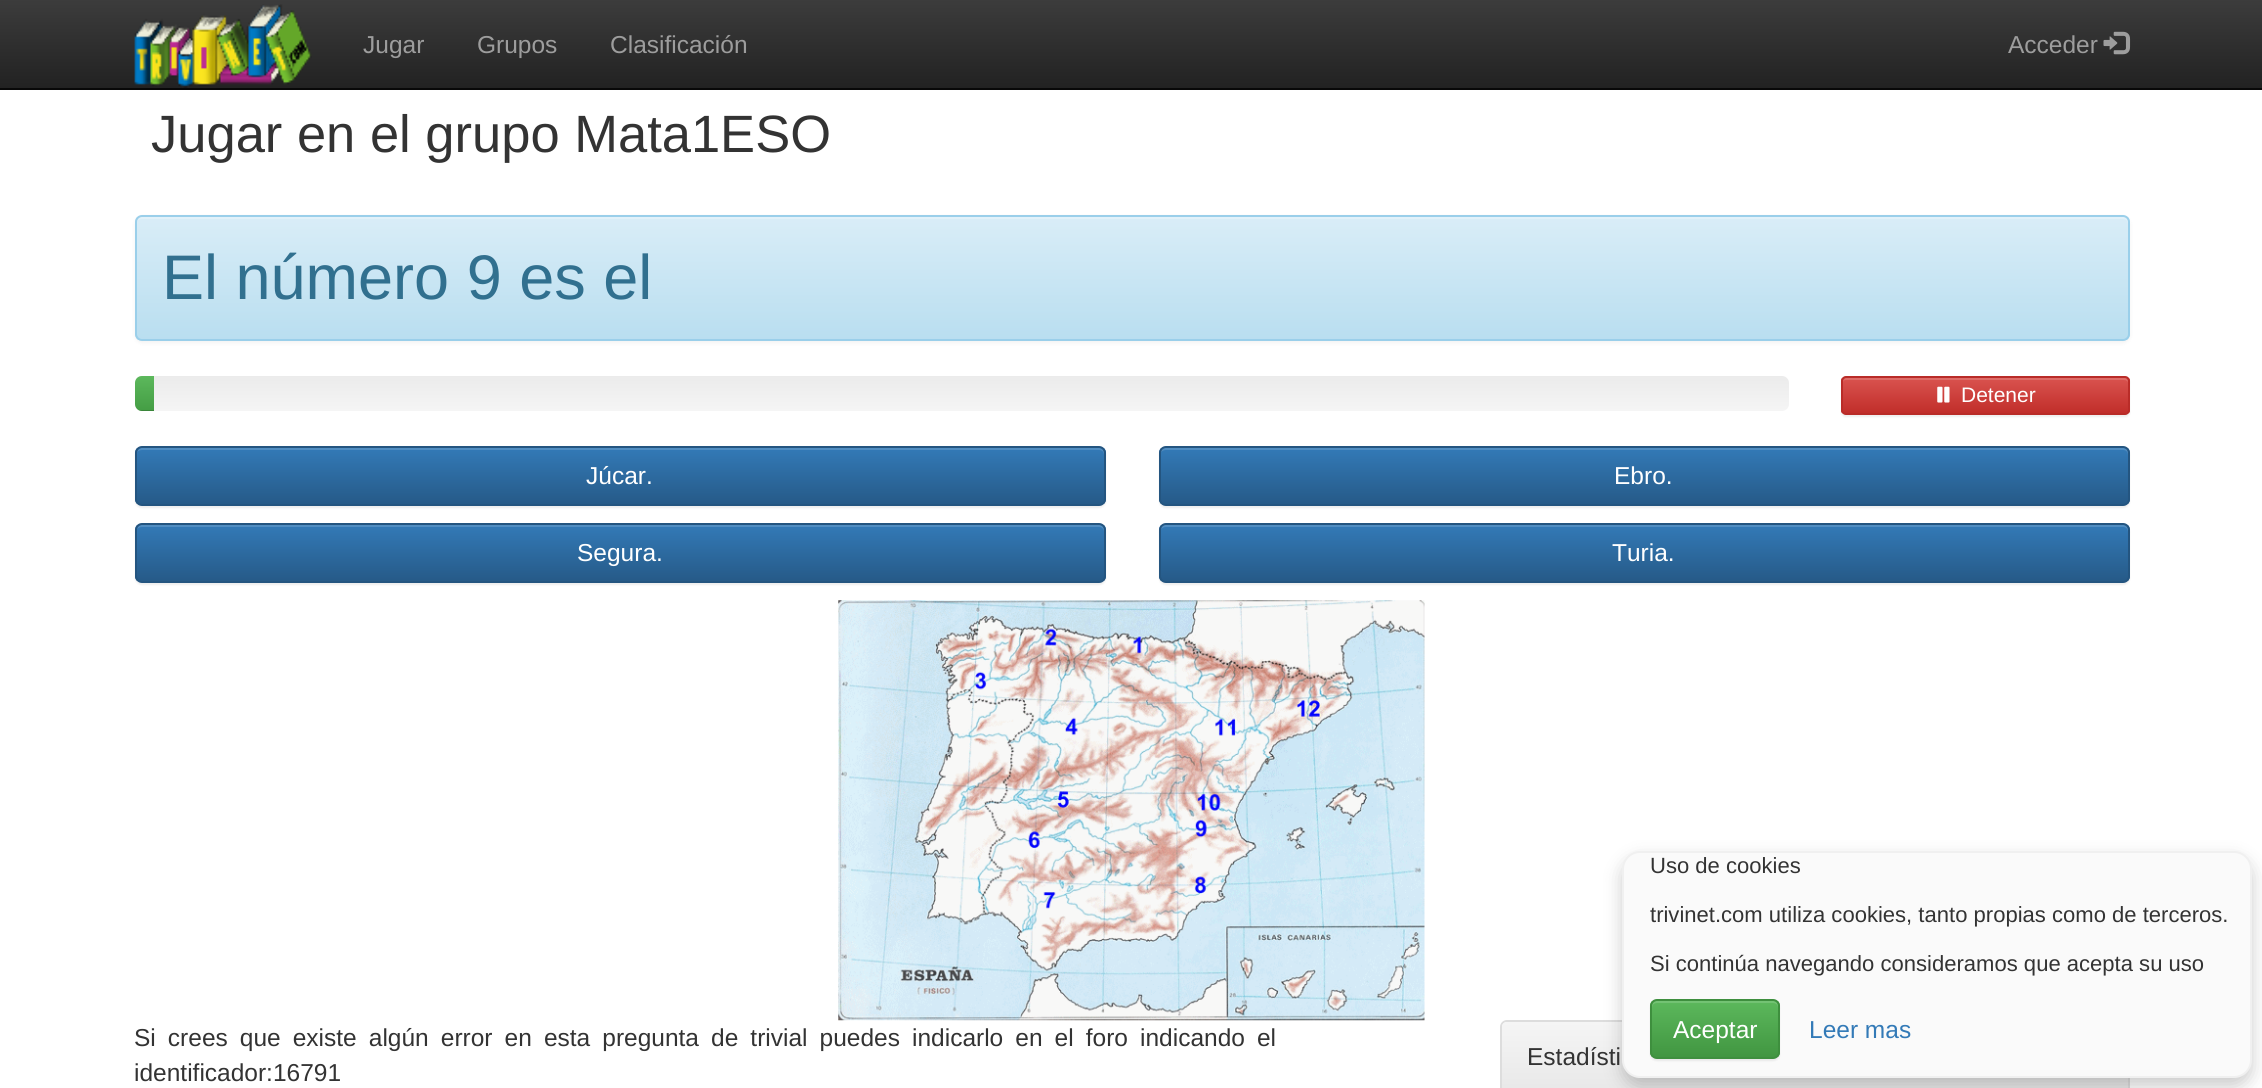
import math
import cairo

surface = cairo.ImageSurface(cairo.FORMAT_RGB24, 2262, 1088)
cr = cairo.Context(surface)
options = cairo.FontOptions()
options.set_hint_metrics(cairo.HINT_METRICS_OFF)
options.set_hint_style(cairo.HINT_STYLE_NONE)
cr.set_font_options(options)
cr.set_miter_limit(4)


def rgb(code):
    cr.set_source_rgb(*(v / 255 for v in bytes.fromhex(code[-6:])))


def tracked(x, y, s, letter, word):
    cr.move_to(x, y)
    for ch in s:
        cr.show_text(ch)
        cr.rel_move_to(letter + word * (ch == ' '), 0)


def rrect(x, y, w, h, r):
    cr.new_sub_path()
    for i, (u, v) in enumerate([(x + w - r, y + h - r), (x + r, y + h - r), (x + r, y + r), (x + w - r, y + r)]):
        cr.arc(u, v, r, i * math.pi / 2, (i + 1) * math.pi / 2)
    cr.close_path()


def soft_shadow(x, y, w, h, r, blur, alpha):
    cr.push_group_with_content(cairo.CONTENT_ALPHA)
    cr.set_operator(cairo.OPERATOR_SOURCE)
    for i in range(15, -16, -2):
        e = blur * i / 6
        if min(w, h) + 2 * e > 0:
            cr.set_source_rgba(0, 0, 0, alpha * math.erfc((i - 1) / 8.5) / 2)
            rrect(x - e, y - e, w + 2 * e, h + 2 * e, max(0, min(r + e + blur * .6, min(w, h) / 2 + e)))
            cr.fill()
    cr.mask(cr.pop_group())


def image(path, x, y, w, h):
    cr.save()
    cr.set_source_surface(cairo.ImageSurface.create_from_png(path), x, y)
    cr.rectangle(x, y, w, h)
    cr.fill()
    cr.restore()


rgb("#ffffff")
cr.paint()
gradient = cairo.LinearGradient(1131, 0, 1131, 88)
gradient.add_color_stop_rgba(0, 0.235, 0.235, 0.235, 1)
gradient.add_color_stop_rgba(1, 0.133, 0.133, 0.133, 1)
cr.set_source(gradient)
cr.rectangle(0, 0, 2262, 88)
cr.fill()
rgb("#080808")
cr.rectangle(0, 88, 2262, 2)
cr.fill()
image("img/1.png", 134, 4, 178, 84)
image("img/2.png", 2103, 31, 28, 24)
rgb("#000000")
soft_shadow(135, 217, 1995, 126, 7, 2, 0.05)
cr.save()
rrect(135, 215, 1995, 126, 7)
cr.clip()
gradient = cairo.LinearGradient(1132, 217, 1132, 340)
gradient.add_color_stop_rgba(0, 0.851, 0.929, 0.969, 1)
gradient.add_color_stop_rgba(1, 0.725, 0.871, 0.941, 1)
cr.set_source(gradient)
cr.rectangle(135, 217, 1995, 123)
cr.fill()
cr.restore()
rgb("#e2f1f9")
cr.new_path()
cr.move_to(142, 219)
cr.line_to(2123, 219)
cr.curve_to(2126, 219, 2128, 221, 2128, 224)
cr.line_to(2128, 222)
cr.curve_to(2128, 219, 2126, 217, 2123, 217)
cr.line_to(142, 217)
cr.curve_to(140, 217, 137, 219, 137, 221)
cr.curve_to(138, 220, 140, 219, 142, 219)
cr.close_path()
cr.fill()
rrect(136, 216, 1993, 124, 6)
rgb("#9acfea")
cr.stroke()
gradient = cairo.LinearGradient(962, 376, 962, 411)
gradient.add_color_stop_rgba(0, 0.922, 0.922, 0.922, 1)
gradient.add_color_stop_rgba(1, 0.961, 0.961, 0.961, 1)
cr.set_source(gradient)
rrect(135, 376, 1654, 35, 7)
cr.fill()
gradient = cairo.LinearGradient(144, 376, 144, 411)
gradient.add_color_stop_rgba(0, 0.361, 0.722, 0.361, 1)
gradient.add_color_stop_rgba(1, 0.267, 0.616, 0.267, 1)
cr.set_source(gradient)
cr.new_path()
cr.move_to(142, 376)
cr.line_to(154, 376)
cr.line_to(154, 411)
cr.line_to(142, 411)
cr.curve_to(138, 411, 135, 408, 135, 404)
cr.line_to(135, 383)
cr.curve_to(135, 379, 138, 376, 142, 376)
cr.close_path()
cr.fill()
cr.save()
rrect(135, 376, 1654, 35, 7)
cr.clip()
cr.set_source_rgba(0, 0, 0, 0.15)
cr.rectangle(135, 410, 19, 1)
cr.fill()
cr.restore()
rgb("#000000")
soft_shadow(1841, 378, 289, 39, 5, 1, 0.07)
cr.save()
rrect(1841, 376, 289, 39, 5)
cr.clip()
gradient = cairo.LinearGradient(1985, 378, 1985, 413)
gradient.add_color_stop_rgba(0, 0.851, 0.325, 0.31, 1)
gradient.add_color_stop_rgba(1, 0.757, 0.18, 0.165, 1)
cr.set_source(gradient)
cr.rectangle(1841, 378, 289, 35)
cr.fill()
cr.restore()
rgb("#de6c68")
cr.new_path()
cr.move_to(1846, 380)
cr.line_to(2124, 380)
cr.curve_to(2126, 380, 2128, 381, 2128, 383)
cr.curve_to(2128, 380, 2127, 378, 2124, 378)
cr.line_to(1847, 378)
cr.curve_to(1844, 378, 1843, 380, 1843, 383)
cr.curve_to(1843, 381, 1844, 380, 1846, 380)
cr.close_path()
cr.fill()
rrect(1842, 377, 287, 37, 4)
rgb("#b92c28")
cr.stroke()
image("img/3.png", 1937, 386, 13, 17)
rgb("#000000")
soft_shadow(135, 448, 971, 60, 7, 1, 0.07)
cr.save()
rrect(135, 446, 971, 60, 7)
cr.clip()
gradient = cairo.LinearGradient(620, 448, 620, 504)
gradient.add_color_stop_rgba(0, 0.2, 0.478, 0.718, 1)
gradient.add_color_stop_rgba(1, 0.149, 0.353, 0.533, 1)
cr.set_source(gradient)
cr.rectangle(135, 448, 971, 56)
cr.fill()
cr.restore()
cr.set_source_rgba(1, 1, 1, 0.15)
cr.new_path()
cr.move_to(142, 450)
cr.line_to(1099, 450)
cr.curve_to(1102, 450, 1104, 452, 1104, 455)
cr.line_to(1104, 453)
cr.curve_to(1104, 450, 1102, 448, 1099, 448)
cr.line_to(142, 448)
cr.curve_to(140, 448, 137, 450, 137, 452)
cr.curve_to(138, 451, 140, 450, 142, 450)
cr.close_path()
cr.fill()
rrect(136, 447, 969, 58, 6)
rgb("#245580")
cr.stroke()
rgb("#000000")
soft_shadow(1159, 448, 971, 60, 7, 1, 0.07)
cr.save()
rrect(1159, 446, 971, 60, 7)
cr.clip()
gradient = cairo.LinearGradient(1644, 448, 1644, 504)
gradient.add_color_stop_rgba(0, 0.2, 0.478, 0.718, 1)
gradient.add_color_stop_rgba(1, 0.149, 0.353, 0.533, 1)
cr.set_source(gradient)
cr.rectangle(1159, 448, 971, 56)
cr.fill()
cr.restore()
cr.set_source_rgba(1, 1, 1, 0.15)
cr.new_path()
cr.move_to(1166, 450)
cr.line_to(2123, 450)
cr.curve_to(2126, 450, 2128, 452, 2128, 455)
cr.line_to(2128, 453)
cr.curve_to(2128, 450, 2126, 448, 2123, 448)
cr.line_to(1165, 448)
cr.curve_to(1162, 448, 1160, 450, 1160, 453)
cr.line_to(1160, 455)
cr.curve_to(1160, 452, 1163, 450, 1166, 450)
cr.close_path()
cr.fill()
rrect(1160, 447, 969, 58, 6)
rgb("#245580")
cr.stroke()
rgb("#000000")
soft_shadow(135, 525, 971, 60, 7, 1, 0.07)
cr.save()
rrect(135, 523, 971, 60, 7)
cr.clip()
gradient = cairo.LinearGradient(620, 525, 620, 581)
gradient.add_color_stop_rgba(0, 0.2, 0.478, 0.718, 1)
gradient.add_color_stop_rgba(1, 0.149, 0.353, 0.533, 1)
cr.set_source(gradient)
cr.rectangle(135, 525, 971, 56)
cr.fill()
cr.restore()
cr.set_source_rgba(1, 1, 1, 0.15)
cr.new_path()
cr.move_to(142, 527)
cr.line_to(1099, 527)
cr.curve_to(1102, 527, 1104, 529, 1104, 532)
cr.line_to(1104, 530)
cr.curve_to(1104, 527, 1102, 525, 1099, 525)
cr.line_to(142, 525)
cr.curve_to(140, 525, 137, 527, 137, 529)
cr.curve_to(138, 528, 140, 527, 142, 527)
cr.close_path()
cr.fill()
rrect(136, 524, 969, 58, 6)
rgb("#245580")
cr.stroke()
rgb("#000000")
soft_shadow(1159, 525, 971, 60, 7, 1, 0.07)
cr.save()
rrect(1159, 523, 971, 60, 7)
cr.clip()
gradient = cairo.LinearGradient(1644, 525, 1644, 581)
gradient.add_color_stop_rgba(0, 0.2, 0.478, 0.718, 1)
gradient.add_color_stop_rgba(1, 0.149, 0.353, 0.533, 1)
cr.set_source(gradient)
cr.rectangle(1159, 525, 971, 56)
cr.fill()
cr.restore()
cr.set_source_rgba(1, 1, 1, 0.15)
cr.new_path()
cr.move_to(1166, 527)
cr.line_to(2123, 527)
cr.curve_to(2126, 527, 2128, 529, 2128, 532)
cr.line_to(2128, 530)
cr.curve_to(2128, 527, 2126, 525, 2123, 525)
cr.line_to(1165, 525)
cr.curve_to(1162, 525, 1160, 527, 1160, 530)
cr.line_to(1160, 532)
cr.curve_to(1160, 529, 1163, 527, 1166, 527)
cr.close_path()
cr.fill()
rrect(1160, 524, 969, 58, 6)
rgb("#245580")
cr.stroke()
image("img/4.png", 838, 600, 587, 421)
rrect(1501, 1021, 628, 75, 6)
rgb("#dddddd")
cr.stroke()
gradient = cairo.LinearGradient(1815, 1022, 1815, 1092)
gradient.add_color_stop_rgba(0, 0.961, 0.961, 0.961, 1)
gradient.add_color_stop_rgba(1, 0.91, 0.91, 0.91, 1)
cr.set_source(gradient)
cr.new_path()
cr.move_to(1507, 1022)
cr.line_to(2123, 1022)
cr.curve_to(2126, 1022, 2128, 1024, 2128, 1027)
cr.line_to(2128, 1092)
cr.line_to(1502, 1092)
cr.line_to(1502, 1027)
cr.curve_to(1502, 1024, 1504, 1022, 1507, 1022)
cr.close_path()
cr.fill()
rgb("#000000")
soft_shadow(1622, 859, 630, 228, 18, 9, 0.2)
rgb("#fafafa")
rrect(1623, 852, 628, 225, 17)
cr.fill_preserve()
rgb("#f0f0f0")
cr.stroke()
rgb("#000000")
soft_shadow(1650, 1001, 130, 60, 7, 1, 0.07)
cr.save()
rrect(1650, 999, 130, 60, 7)
cr.clip()
gradient = cairo.LinearGradient(1715, 1001, 1715, 1057)
gradient.add_color_stop_rgba(0, 0.361, 0.722, 0.361, 1)
gradient.add_color_stop_rgba(1, 0.255, 0.588, 0.255, 1)
cr.set_source(gradient)
cr.rectangle(1650, 1001, 130, 56)
cr.fill()
cr.restore()
cr.set_source_rgba(1, 1, 1, 0.15)
cr.new_path()
cr.move_to(1657, 1003)
cr.line_to(1773, 1003)
cr.curve_to(1776, 1003, 1778, 1005, 1778, 1008)
cr.line_to(1778, 1006)
cr.curve_to(1778, 1003, 1776, 1001, 1773, 1001)
cr.line_to(1657, 1001)
cr.curve_to(1654, 1001, 1652, 1003, 1652, 1006)
cr.line_to(1652, 1008)
cr.curve_to(1652, 1005, 1654, 1003, 1657, 1003)
cr.close_path()
cr.fill()
rrect(1651, 1000, 128, 58, 6)
rgb("#3e8f3e")
cr.stroke()
cr.select_font_face("Liberation Sans")
cr.set_font_size(24.5)
rgb("#9d9d9d")
for x, y, s in [
    (363, 53, "Jugar"),
    (477, 53, "Grupos"),
    (610, 53, "Clasificación"),
    (2008, 53, "Acceder"),
]:
    cr.move_to(x, y)
    cr.show_text(s)
cr.set_font_size(52.5)
rgb("#333333")
cr.move_to(151, 152)
cr.show_text("Jugar en el grupo Mata1ESO")
cr.set_font_size(63)
rgb("#31708f")
cr.move_to(162, 299)
cr.show_text("El número 9 es el")
cr.set_font_size(21)
rgb("#ffffff")
cr.move_to(1961, 402)
cr.show_text("Detener")
cr.set_font_size(24.5)
for x, y, s in [
    (586, 484, "Júcar."),
    (1614, 484, "Ebro."),
    (577, 561, "Segura."),
    (1612, 561, "Turia."),
]:
    cr.move_to(x, y)
    cr.show_text(s)
rgb("#333333")
tracked(134, 1046, "Si crees que existe algún error en esta pregunta de trivial puedes indicarlo en el foro indicando el", 0, 5.25)
cr.move_to(134, 1081)
cr.show_text("identificador:16791")
cr.move_to(1527, 1065)
cr.show_text("Estadísti")
cr.set_font_size(22.05)
for x, y, s in [
    (1650, 873, "Uso de cookies"),
    (1650, 922, "trivinet.com utiliza cookies, tanto propias como de terceros."),
    (1650, 971, "Si continúa navegando consideramos que acepta su uso"),
]:
    cr.move_to(x, y)
    cr.show_text(s)
cr.set_font_size(24.5)
rgb("#ffffff")
cr.move_to(1673, 1038)
cr.show_text("Aceptar")
rgb("#337ab7")
cr.move_to(1809, 1038)
cr.show_text("Leer mas")
surface.write_to_png("page.png")
